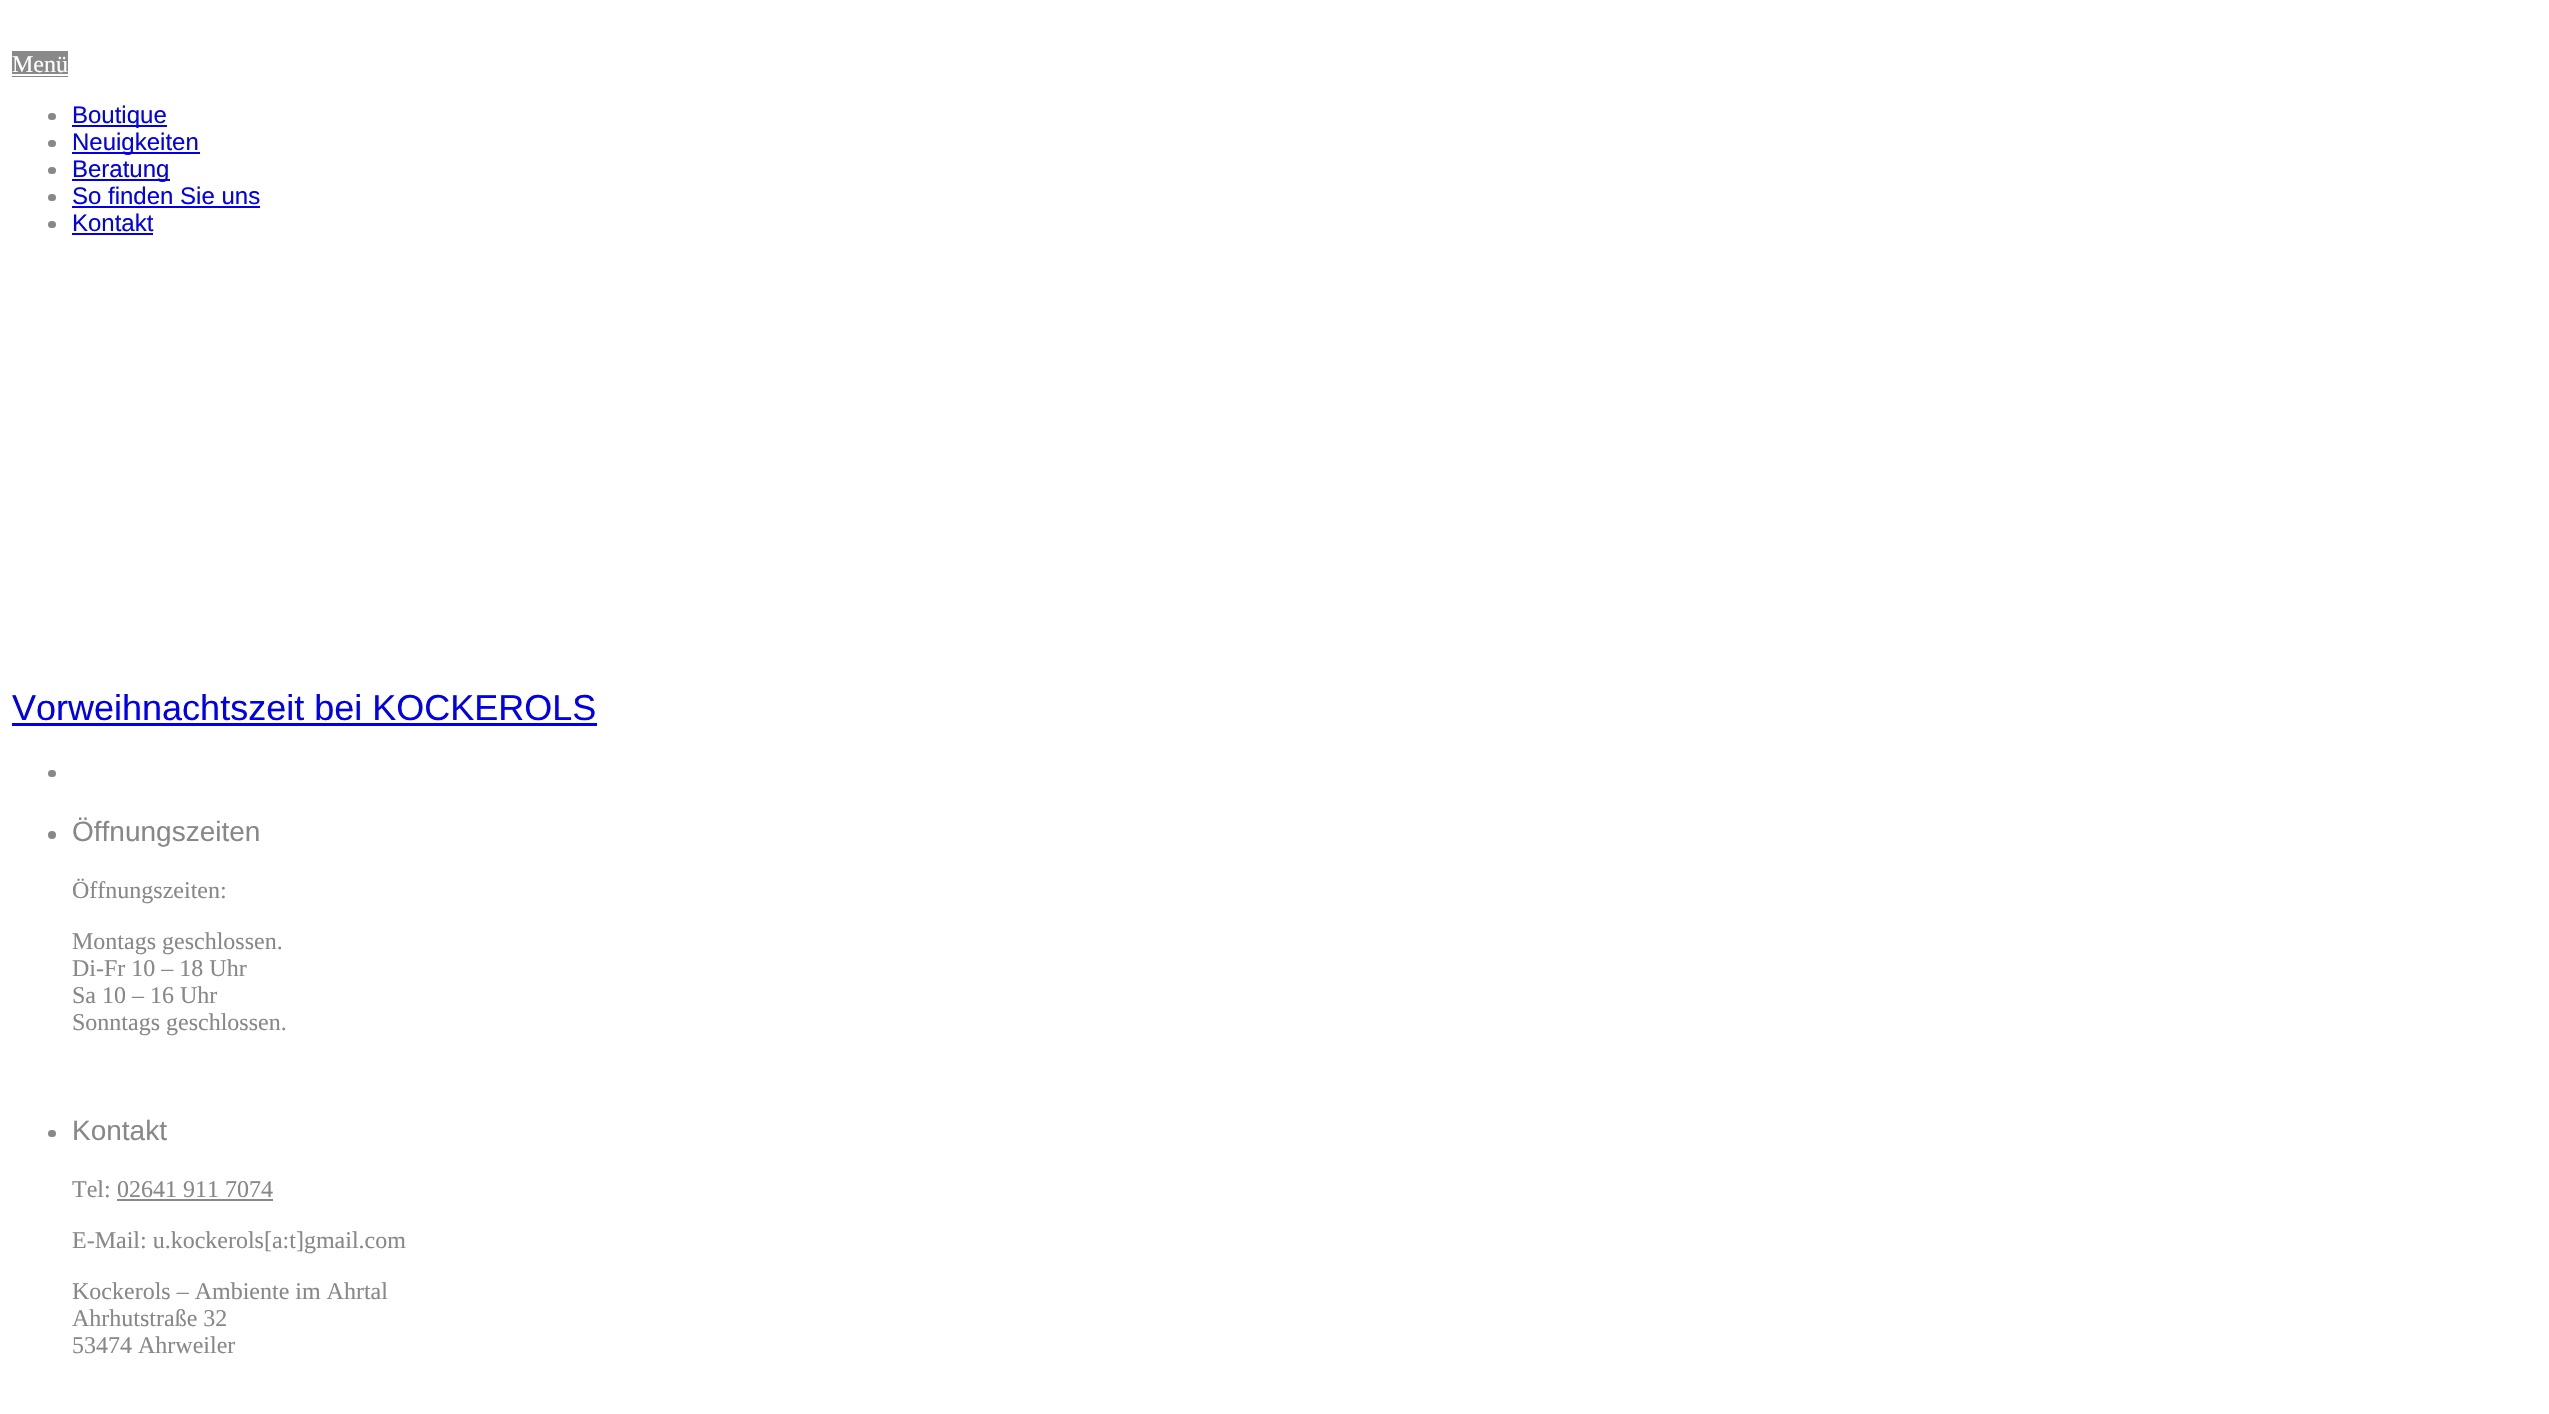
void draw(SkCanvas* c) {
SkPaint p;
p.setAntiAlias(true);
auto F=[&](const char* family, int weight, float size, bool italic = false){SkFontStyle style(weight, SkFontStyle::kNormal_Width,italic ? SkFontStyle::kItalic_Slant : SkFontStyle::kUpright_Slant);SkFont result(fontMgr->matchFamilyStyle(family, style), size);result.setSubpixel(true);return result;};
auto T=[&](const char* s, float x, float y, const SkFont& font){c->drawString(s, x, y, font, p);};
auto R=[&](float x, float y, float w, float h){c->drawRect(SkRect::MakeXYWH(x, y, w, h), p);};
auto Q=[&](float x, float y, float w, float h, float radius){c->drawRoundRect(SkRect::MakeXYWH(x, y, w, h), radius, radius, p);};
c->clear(0xffffffff);
p.setColor(0xff898989);
R(12,51,56,26);
auto f1 = F("Liberation Serif",400,24);
p.setColor(0xffffffff);
T("Menü",12,72,f1);
R(12,74,56,2);
p.setColor(0xff888888);
Q(48,113,8,7,3.5);
p.setColor(0xff0000ee);
R(72,125,95,2);
auto f2 = F("Liberation Sans",400,24);
T("Boutique",72,123,f2);
p.setColor(0xff888888);
Q(48,140,8,7,3.5);
p.setColor(0xff0000ee);
R(72,152,128,2);
T("Neuigkeiten",72,150,f2);
p.setColor(0xff888888);
Q(48,167,8,7,3.5);
p.setColor(0xff0000ee);
R(72,179,98,2);
T("Beratung",72,177,f2);
p.setColor(0xff888888);
Q(48,194,8,7,3.5);
p.setColor(0xff0000ee);
T("So finden Sie uns",72,204,f2);
R(72,206,188,2);
p.setColor(0xff888888);
Q(48,221,8,7,3.5);
p.setColor(0xff0000ee);
T("Kontakt",72,231,f2);
R(72,233,81,2);
auto f3 = F("Liberation Sans",400,36);
T("Vorweihnachtszeit bei KOCKEROLS",12,720,f3);
R(12,723,585,3);
p.setColor(0xff888888);
Q(48,770,8,7,3.5);
c->drawCircle(52,835,4,p);
auto f4 = F("Liberation Sans",400,28);
T("Öffnungszeiten",72,841,f4);
T("Öffnungszeiten:",72,898,f1);
T("Montags geschlossen.",72,949,f1);
T("Di-Fr 10 – 18 Uhr",72,976,f1);
T("Sa 10 – 16 Uhr",72,1003,f1);
T("Sonntags geschlossen.",72,1030,f1);
Q(48,1130,8,7,3.5);
T("Kontakt",72,1140,f4);
T("Tel:",72,1197,f1);
T("02641 911 7074",117,1197,f1);
p.setColor(0xff898989);
R(117,1199,156,2);
p.setColor(0xff888888);
T("E-Mail: u.kockerols[a:t]gmail.com",72,1248,f1);
T("Kockerols – Ambiente im Ahrtal",72,1299,f1);
T("Ahrhutstraße 32",72,1326,f1);
T("53474 Ahrweiler",72,1353,f1);
}
